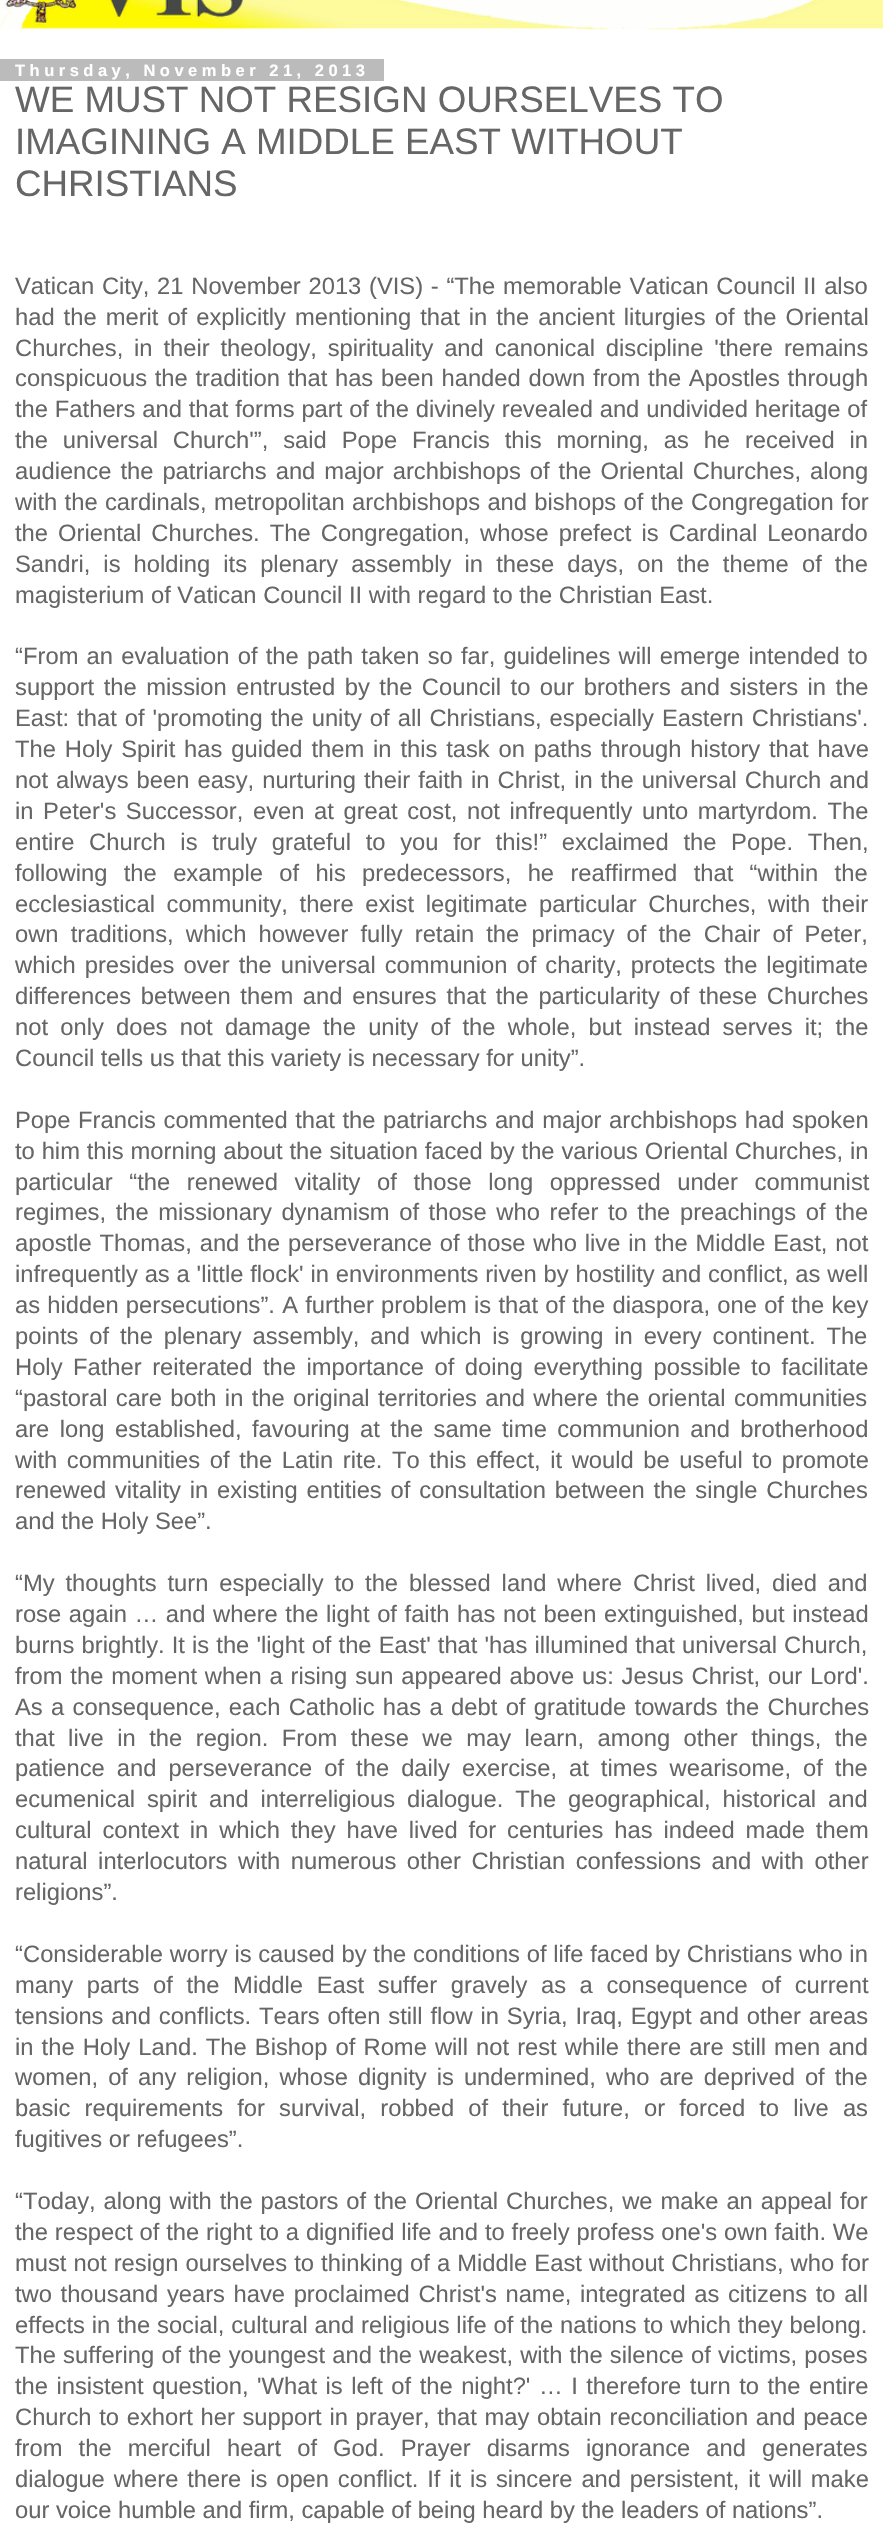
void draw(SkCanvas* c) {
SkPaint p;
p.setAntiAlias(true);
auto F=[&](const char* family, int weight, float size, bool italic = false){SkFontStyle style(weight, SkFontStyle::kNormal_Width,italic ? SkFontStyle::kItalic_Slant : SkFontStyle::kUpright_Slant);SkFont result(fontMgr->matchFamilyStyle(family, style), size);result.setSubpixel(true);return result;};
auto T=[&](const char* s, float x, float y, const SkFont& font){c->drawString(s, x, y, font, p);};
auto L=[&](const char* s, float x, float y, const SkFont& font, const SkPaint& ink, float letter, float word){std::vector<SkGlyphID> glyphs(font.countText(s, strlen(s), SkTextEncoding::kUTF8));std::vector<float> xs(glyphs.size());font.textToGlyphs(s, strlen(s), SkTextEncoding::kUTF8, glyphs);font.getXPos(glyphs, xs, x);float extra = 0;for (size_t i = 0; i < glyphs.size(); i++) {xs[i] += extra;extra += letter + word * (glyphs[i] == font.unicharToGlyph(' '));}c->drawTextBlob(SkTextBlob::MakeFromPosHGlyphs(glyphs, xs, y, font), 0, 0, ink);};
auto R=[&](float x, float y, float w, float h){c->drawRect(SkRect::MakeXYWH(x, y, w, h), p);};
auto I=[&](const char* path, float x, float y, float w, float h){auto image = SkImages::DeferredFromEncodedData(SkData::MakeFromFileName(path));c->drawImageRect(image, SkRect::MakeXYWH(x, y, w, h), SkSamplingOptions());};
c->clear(0xffffffff);
I("1.png",0,0,883,30);
p.setColor(0xffbbbbbb);
R(0,59,384,22);
auto f1 = F("Liberation Sans",700,16.5);
p.setColor(0xffffffff);
L("Thursday, November 21, 2013",15,76,f1,p,4.5,0);
auto f2 = F("Liberation Sans",400,36.75);
p.setColor(0xff666666);
T("WE MUST NOT RESIGN OURSELVES TO",15,112,f2);
T("IMAGINING A MIDDLE EAST WITHOUT",15,154,f2);
T("CHRISTIANS",15,196,f2);
auto f3 = F("Liberation Sans",400,23.75);
L("Vatican City, 21 November 2013 (VIS) - “The memorable Vatican Council II also",15,294,f3,p,0,1.1);
L("had the merit of explicitly mentioning that in the ancient liturgies of the Oriental",15,325,f3,p,0,2.4);
L("Churches, in their theology, spirituality and canonical discipline 'there remains",15,356,f3,p,0,4.25);
L("conspicuous the tradition that has been handed down from the Apostles through",15,386,f3,p,0,1.1);
L("the Fathers and that forms part of the divinely revealed and undivided heritage of",15,417,f3,p,0,.25);
L("the universal Church'”, said Pope Francis this morning, as he received in",15,448,f3,p,0,8.25);
L("audience the patriarchs and major archbishops of the Oriental Churches, along",15,479,f3,p,0,2.4);
L("with the cardinals, metropolitan archbishops and bishops of the Congregation for",15,510,f3,p,0,.75);
L("the Oriental Churches. The Congregation, whose prefect is Cardinal Leonardo",15,541,f3,p,0,3.5);
L("Sandri, is holding its plenary assembly in these days, on the theme of the",15,572,f3,p,0,6.5);
T("magisterium of Vatican Council II with regard to the Christian East.",15,603,f3);
T("“",15,664,f3);
L("From an evaluation of the path taken so far, guidelines will emerge intended to",23,664,f3,p,0,1.6);
L("support the mission entrusted by the Council to our brothers and sisters in the",15,695,f3,p,0,2.9);
L("East: that of 'promoting the unity of all Christians, especially Eastern Christians'.",15,726,f3,p,0,1.4);
L("The Holy Spirit has guided them in this task on paths through history that have",15,757,f3,p,0,2.25);
L("not always been easy, nurturing their faith in Christ, in the universal Church and",15,788,f3,p,0,1.4);
L("in Peter's Successor, even at great cost, not infrequently unto martyrdom. The",15,819,f3,p,0,3);
L("entire Church is truly grateful to you for this!” exclaimed the Pope. Then,",15,850,f3,p,0,8.1);
L("following the example of his predecessors, he reaffirmed that “within the",15,881,f3,p,0,9.75);
L("ecclesiastical community, there exist legitimate particular Churches, with their",15,912,f3,p,0,5);
L("own traditions, which however fully retain the primacy of the Chair of Peter,",15,942,f3,p,0,5.5);
L("which presides over the universal communion of charity, protects the legitimate",15,973,f3,p,0,2.4);
L("differences between them and ensures that the particularity of these Churches",15,1004,f3,p,0,3.1);
L("not only does not damage the unity of the whole, but instead serves it; the",15,1035,f3,p,0,5.6);
T("Council tells us that this variety is necessary for unity”.",15,1066,f3);
L("Pope Francis commented that the patriarchs and major archbishops had spoken",15,1128,f3,p,0,1);
L("to him this morning about the situation faced by the various Oriental Churches, in",15,1159,f3,p,0,.25);
L("particular “the renewed vitality of those long oppressed under communist",15,1190,f3,p,0,10);
L("regimes, the missionary dynamism of those who refer to the preachings of the",15,1220,f3,p,0,3);
L("apostle Thomas, and the perseverance of those who live in the Middle East, not",15,1251,f3,p,0,1.25);
L("infrequently as a 'little flock' in environments riven by hostility and conflict, as well",15,1282,f3,p,0,.25);
L("as hidden persecutions”. A further problem is that of the diaspora, one of the key",15,1313,f3,p,0,.6);
L("points of the plenary assembly, and which is growing in every continent. The",15,1344,f3,p,0,4.25);
L("Holy Father reiterated the importance of doing everything possible to facilitate",15,1375,f3,p,0,3.9);
L("“pastoral care both in the original territories and where the oriental communities",15,1406,f3,p,0,1.75);
L("are long established, favouring at the same time communion and brotherhood",15,1437,f3,p,0,3.75);
L("with communities of the Latin rite. To this effect, it would be useful to promote",15,1468,f3,p,0,3);
L("renewed vitality in existing entities of consultation between the single Churches",15,1498,f3,p,0,2.25);
T("and the Holy See”.",15,1529,f3);
T("“",15,1591,f3);
L("My thoughts turn especially to the blessed land where Christ lived, died and",23,1591,f3,p,0,4.25);
L("rose again … and where the light of faith has not been extinguished, but instead",15,1622,f3,p,0,1);
L("burns brightly. It is the 'light of the East' that 'has illumined that universal Church,",15,1653,f3,p,0,.5);
L("from the moment when a rising sun appeared above us: Jesus Christ, our Lord'.",15,1684,f3,p,0,1.25);
L("As a consequence, each Catholic has a debt of gratitude towards the Churches",15,1715,f3,p,0,1.75);
L("that live in the region. From these we may learn, among other things, the",15,1746,f3,p,0,6.9);
L("patience and perseverance of the daily exercise, at times wearisome, of the",15,1776,f3,p,0,5.4);
L("ecumenical spirit and interreligious dialogue. The geographical, historical and",15,1807,f3,p,0,5.25);
L("cultural context in which they have lived for centuries has indeed made them",15,1838,f3,p,0,4.25);
L("natural interlocutors with numerous other Christian confessions and with other",15,1869,f3,p,0,3.9);
T("religions”.",15,1900,f3);
T("“",15,1962,f3);
L("Considerable worry is caused by the conditions of life faced by Christians who in",23,1962,f3,p,0,.1);
L("many parts of the Middle East suffer gravely as a consequence of current",15,1993,f3,p,0,7);
L("tensions and conflicts. Tears often still flow in Syria, Iraq, Egypt and other areas",15,2024,f3,p,0,1.25);
L("in the Holy Land. The Bishop of Rome will not rest while there are still men and",15,2055,f3,p,0,1.5);
L("women, of any religion, whose dignity is undermined, who are deprived of the",15,2085,f3,p,0,3.4);
L("basic requirements for survival, robbed of their future, or forced to live as",15,2116,f3,p,0,7.5);
T("fugitives or refugees”.",15,2147,f3);
T("“",15,2209,f3);
L("Today, along with the pastors of the Oriental Churches, we make an appeal for",23,2209,f3,p,0,1.3);
L("the respect of the right to a dignified life and to freely profess one's own faith. We",15,2240,f3,p,0,.25);
L("must not resign ourselves to thinking of a Middle East without Christians, who for",15,2271,f3,p,0,.5);
L("two thousand years have proclaimed Christ's name, integrated as citizens to all",15,2302,f3,p,0,2);
L("effects in the social, cultural and religious life of the nations to which they belong.",15,2333,f3,p,0,.25);
L("The suffering of the youngest and the weakest, with the silence of victims, poses",15,2363,f3,p,0,.6);
L("the insistent question, 'What is left of the night?' … I therefore turn to the entire",15,2394,f3,p,0,1.9);
L("Church to exhort her support in prayer, that may obtain reconciliation and peace",15,2425,f3,p,0,1.1);
L("from the merciful heart of God. Prayer disarms ignorance and generates",15,2456,f3,p,0,9.5);
L("dialogue where there is open conflict. If it is sincere and persistent, it will make",15,2487,f3,p,0,2.25);
T("our voice humble and firm, capable of being heard by the leaders of nations”.",15,2518,f3);
}
